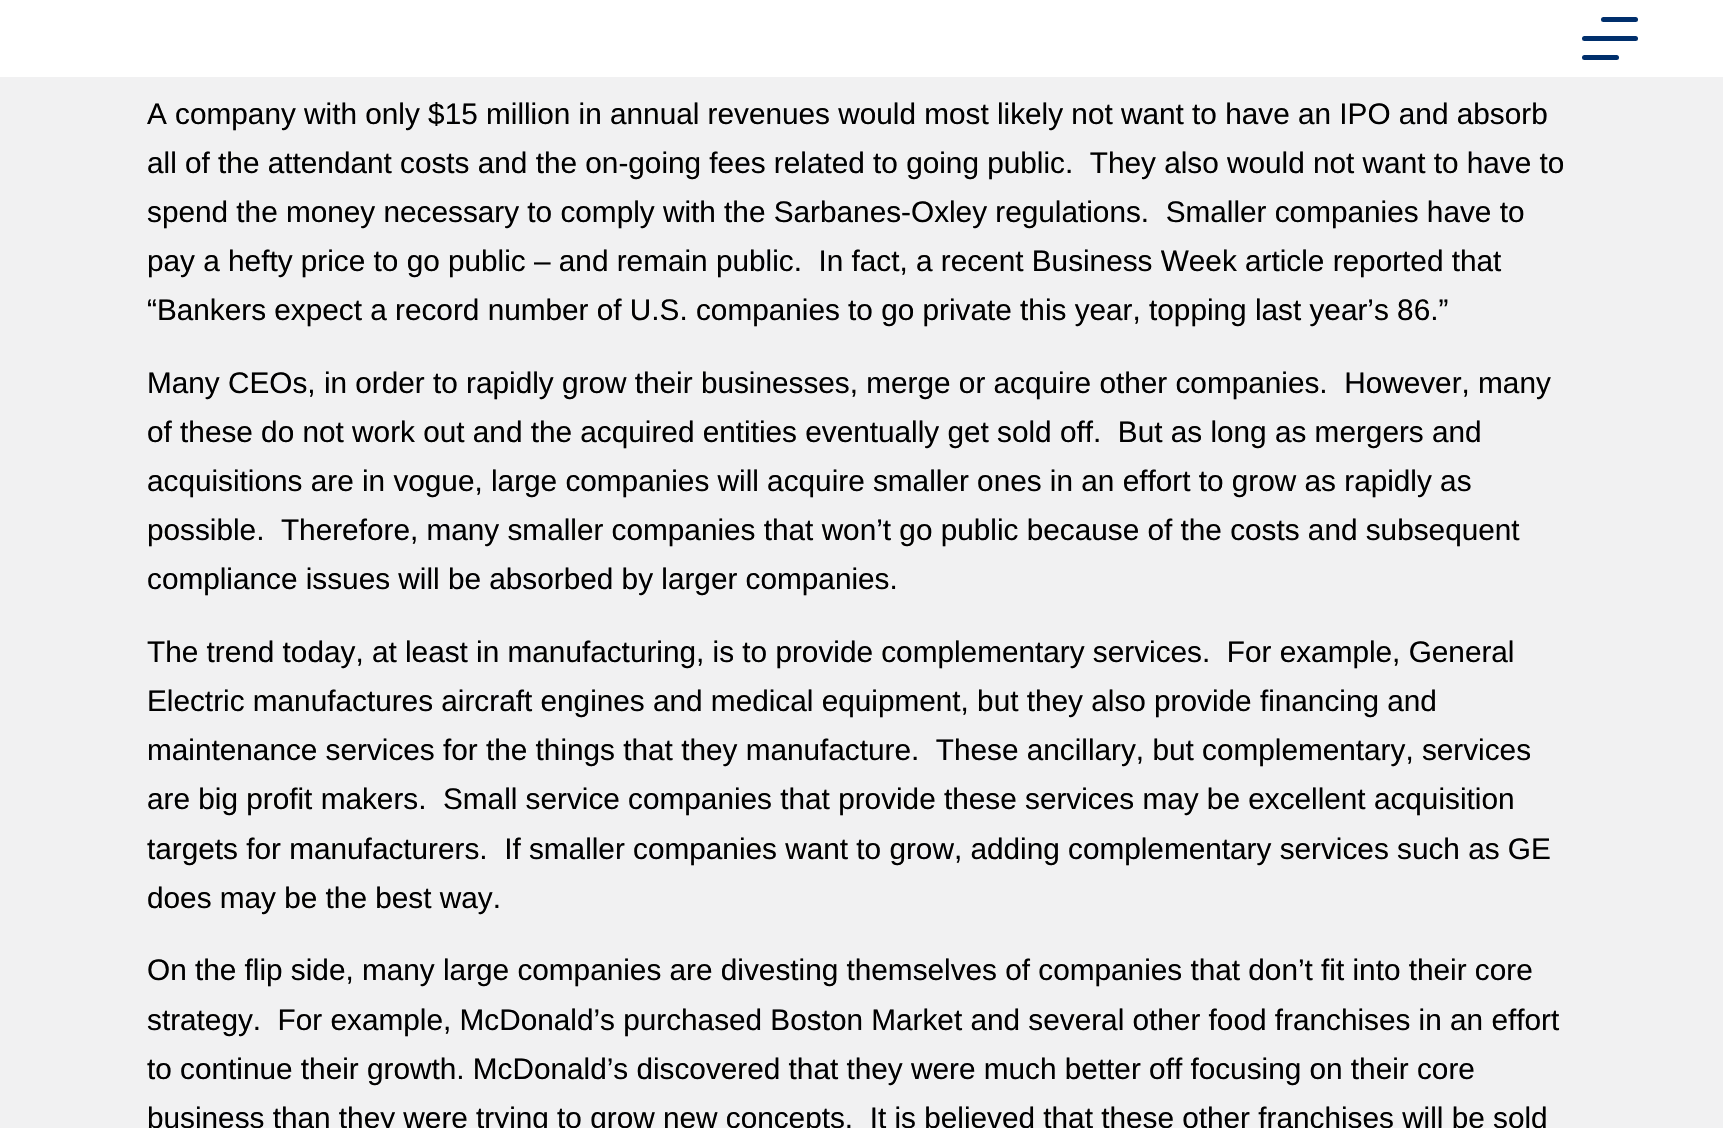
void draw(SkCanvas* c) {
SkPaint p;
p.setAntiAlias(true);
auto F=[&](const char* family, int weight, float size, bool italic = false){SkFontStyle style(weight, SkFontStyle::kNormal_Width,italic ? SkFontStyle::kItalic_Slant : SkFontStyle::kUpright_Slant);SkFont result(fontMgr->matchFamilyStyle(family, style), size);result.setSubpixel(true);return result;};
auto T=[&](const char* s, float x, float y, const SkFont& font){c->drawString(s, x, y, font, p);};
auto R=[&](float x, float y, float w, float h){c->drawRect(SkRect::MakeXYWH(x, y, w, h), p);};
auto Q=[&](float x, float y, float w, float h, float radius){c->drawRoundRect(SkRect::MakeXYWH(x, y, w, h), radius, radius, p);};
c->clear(0xfff1f1f2);
p.setColor(0xffffffff);
R(0,0,1723,77);
p.setColor(0xff002f6c);
Q(1601,17,37,5,2.5);
Q(1582,36,56,5,2.5);
Q(1582,55,37,5,2.5);
auto f1 = F("Liberation Sans",400,29.75);
p.setColor(0xff000000);
T("A company with only $15 million in annual revenues would most likely not want to have an IPO and absorb",147,124,f1);
T("all of the attendant costs and the on-going fees related to going public.  They also would not want to have to",147,173,f1);
T("spend the money necessary to comply with the Sarbanes-Oxley regulations.  Smaller companies have to",147,222,f1);
T("pay a hefty price to go public – and remain public.  In fact, a recent Business Week article reported that",147,271,f1);
T("“Bankers expect a record number of U.S. companies to go private this year, topping last year’s 86.”",147,320,f1);
T("Many CEOs, in order to rapidly grow their businesses, merge or acquire other companies.  However, many",147,393,f1);
T("of these do not work out and the acquired entities eventually get sold off.  But as long as mergers and",147,442,f1);
T("acquisitions are in vogue, large companies will acquire smaller ones in an effort to grow as rapidly as",147,491,f1);
T("possible.  Therefore, many smaller companies that won’t go public because of the costs and subsequent",147,540,f1);
T("compliance issues will be absorbed by larger companies.",147,589,f1);
T("The trend today, at least in manufacturing, is to provide complementary services.  For example, General",147,662,f1);
T("Electric manufactures aircraft engines and medical equipment, but they also provide financing and",147,711,f1);
T("maintenance services for the things that they manufacture.  These ancillary, but complementary, services",147,760,f1);
T("are big profit makers.  Small service companies that provide these services may be excellent acquisition",147,809,f1);
T("targets for manufacturers.  If smaller companies want to grow, adding complementary services such as GE",147,859,f1);
T("does may be the best way.",147,908,f1);
T("On the flip side, many large companies are divesting themselves of companies that don’t fit into their core",147,980,f1);
T("strategy.  For example, McDonald’s purchased Boston Market and several other food franchises in an effort",147,1030,f1);
T("to continue their growth. McDonald’s discovered that they were much better off focusing on their core",147,1079,f1);
T("business than they were trying to grow new concepts.  It is believed that these other franchises will be sold",147,1128,f1);
}
